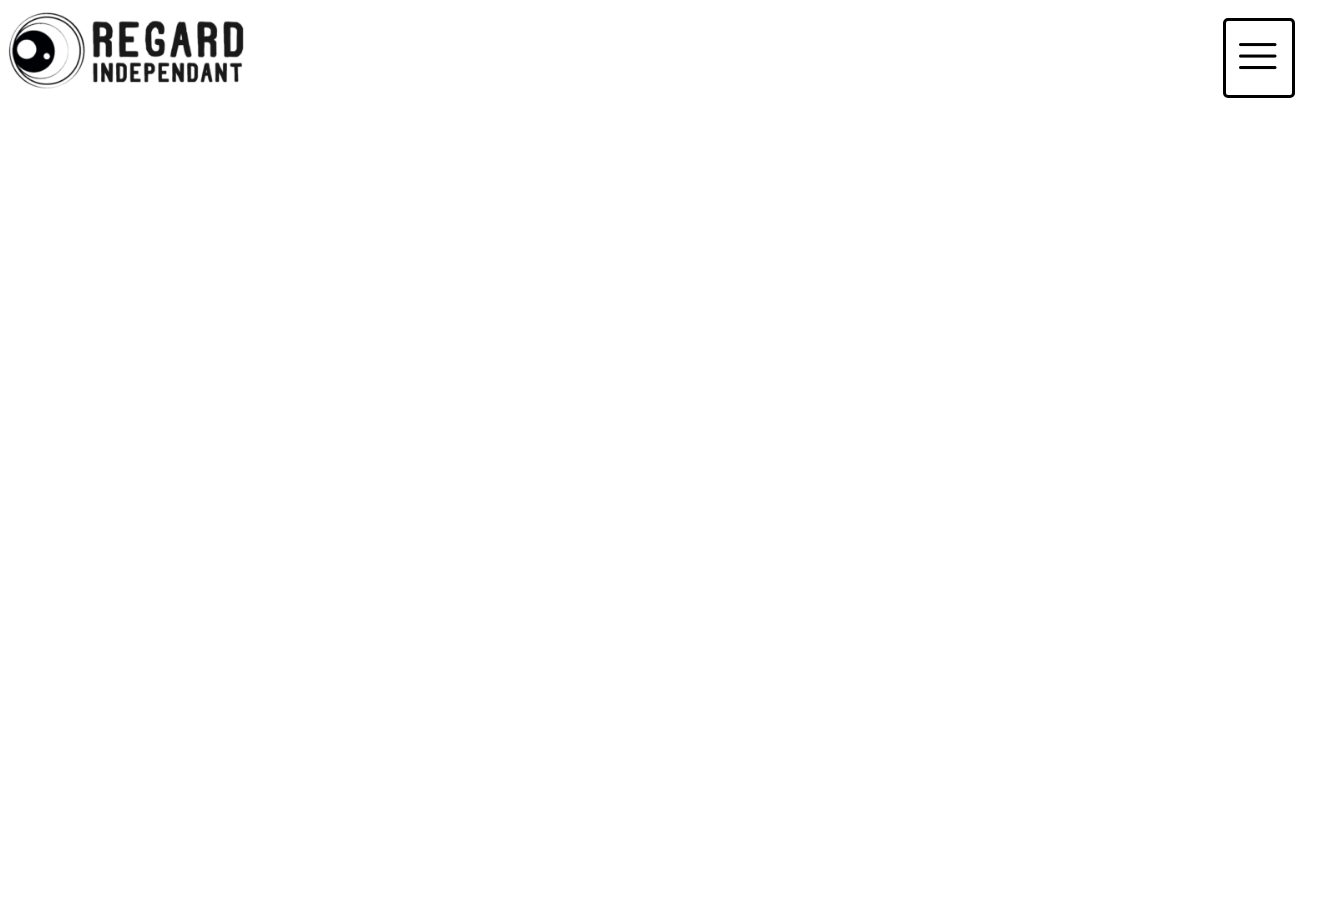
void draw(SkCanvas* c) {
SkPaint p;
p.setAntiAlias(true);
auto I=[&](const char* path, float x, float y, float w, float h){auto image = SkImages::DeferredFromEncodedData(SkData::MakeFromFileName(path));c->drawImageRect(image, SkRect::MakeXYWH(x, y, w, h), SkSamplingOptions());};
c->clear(0xffffffff);
I("1.png",8,12,236,77);
p.setStroke(true);
p.setStrokeWidth(3);
p.setColor(0xff000000);
c->drawRoundRect(SkRect::MakeXYWH(1224.5,19.5,69,77),3.5,3.5,p);
I("2.png",1239,43,38,27);
}
